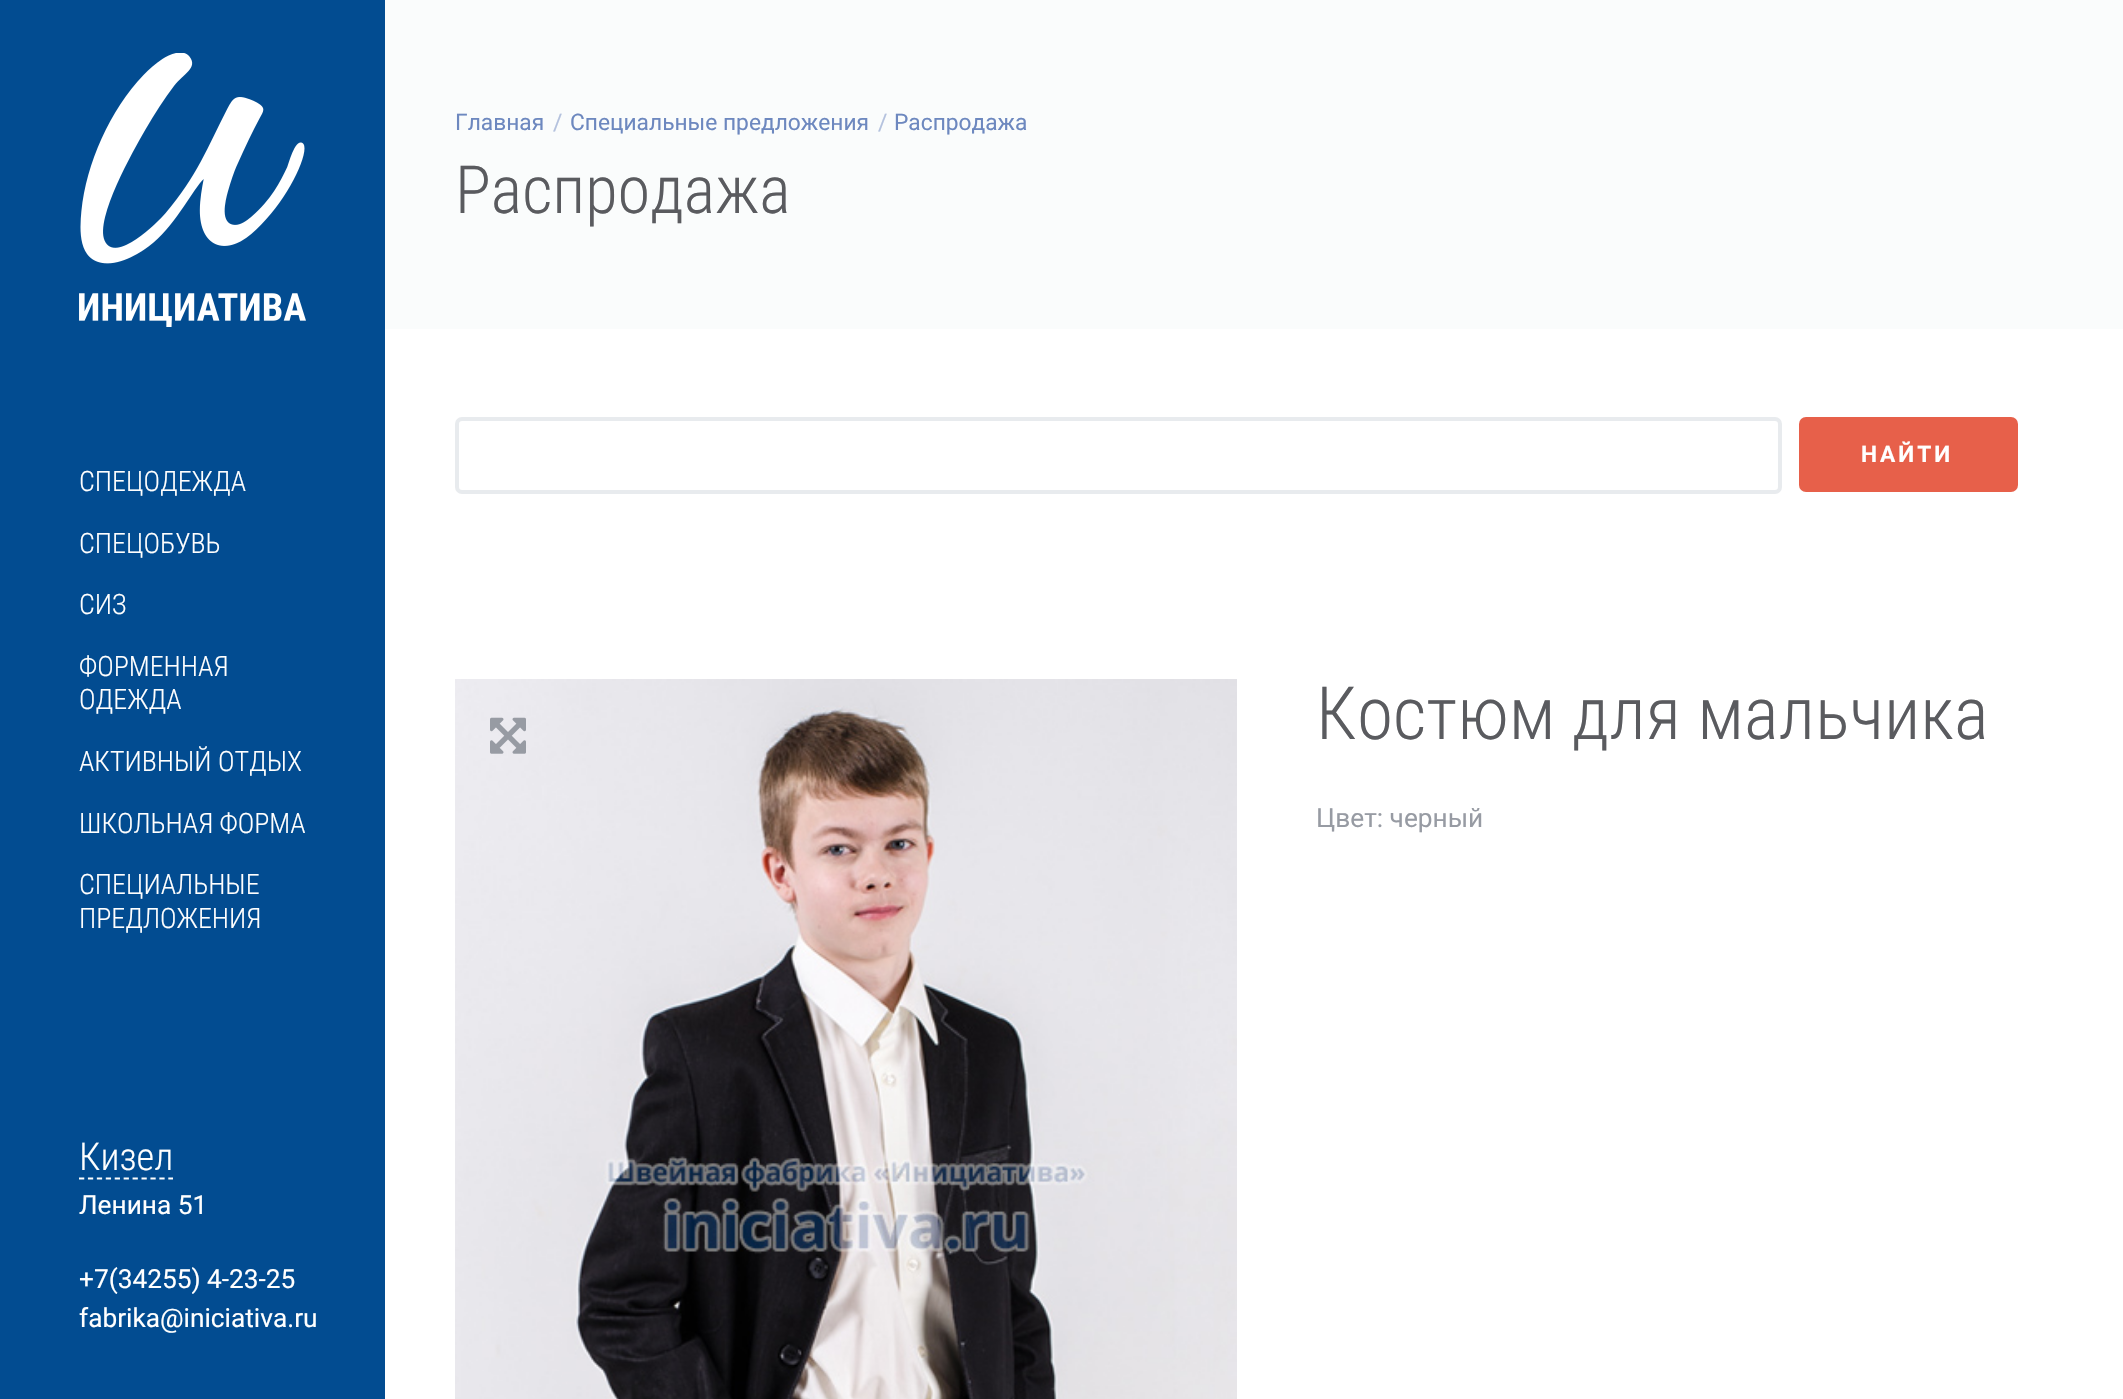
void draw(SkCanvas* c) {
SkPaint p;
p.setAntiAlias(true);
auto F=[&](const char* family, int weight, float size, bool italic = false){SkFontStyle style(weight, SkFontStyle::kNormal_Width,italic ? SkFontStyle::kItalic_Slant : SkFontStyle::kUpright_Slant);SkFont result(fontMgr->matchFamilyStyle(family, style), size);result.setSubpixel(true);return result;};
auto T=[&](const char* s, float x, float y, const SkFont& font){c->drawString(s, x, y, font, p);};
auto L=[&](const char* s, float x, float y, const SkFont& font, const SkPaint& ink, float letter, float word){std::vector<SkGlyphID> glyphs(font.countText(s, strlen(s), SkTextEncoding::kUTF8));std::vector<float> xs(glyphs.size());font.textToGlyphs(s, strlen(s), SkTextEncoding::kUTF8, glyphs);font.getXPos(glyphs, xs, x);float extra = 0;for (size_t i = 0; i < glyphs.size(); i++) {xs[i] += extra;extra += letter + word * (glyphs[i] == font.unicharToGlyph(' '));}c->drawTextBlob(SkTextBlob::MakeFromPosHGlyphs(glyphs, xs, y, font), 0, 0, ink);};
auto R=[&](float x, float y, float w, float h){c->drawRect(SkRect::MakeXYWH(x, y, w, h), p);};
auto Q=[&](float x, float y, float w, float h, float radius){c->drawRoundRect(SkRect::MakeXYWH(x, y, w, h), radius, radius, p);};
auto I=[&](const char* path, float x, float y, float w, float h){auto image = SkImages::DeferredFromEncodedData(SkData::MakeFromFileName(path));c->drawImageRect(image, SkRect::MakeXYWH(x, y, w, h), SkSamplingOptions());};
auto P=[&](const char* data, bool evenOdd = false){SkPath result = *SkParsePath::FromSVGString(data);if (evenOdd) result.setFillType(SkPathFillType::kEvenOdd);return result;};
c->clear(0xffffffff);
p.setColor(0xff024c91);
R(0,0,385,1399);
I("1.png",79,53,227,274);
auto f1 = F("Roboto Condensed",300,28);
p.setColor(0xffffffff);
T("СПЕЦОДЕЖДА",79,491,f1);
T("СПЕЦОБУВЬ",79,553,f1);
T("СИЗ",79,614,f1);
T("ФОРМЕННАЯ",79,676,f1);
T("ОДЕЖДА",79,709,f1);
T("АКТИВНЫЙ ОТДЫХ",79,771,f1);
T("ШКОЛЬНАЯ ФОРМА",79,833,f1);
T("СПЕЦИАЛЬНЫЕ",79,894,f1);
T("ПРЕДЛОЖЕНИЯ",79,928,f1);
p.setStroke(true);
p.setStrokeWidth(1.8);
p.setPathEffect(SkDashPathEffect::Make({{5.25f,3.68f}}, 0));
c->drawPath(P("M79 1178.5h94"),p);
p.setPathEffect(nullptr);
auto f2 = F("Roboto Condensed",300,38.5);
p.setStroke(false);
T("Кизел",79,1170,f2);
auto f3 = F("Roboto",400,26.25);
T("Ленина 51",79,1214,f3);
T("+7(34255) 4-23-25",79,1288,f3);
T("fabrika@iniciativa.ru",79,1327,f3);
p.setColor(0xfffafcfc);
R(385,0,1738,329);
auto f4 = F("Roboto",400,22.75);
p.setColor(0xff6d88bf);
T("Главная",455,130,f4);
p.setColor(0xffb4c2de);
T("/",553,130,f4);
p.setColor(0xff6d88bf);
T("Специальные предложения",570,130,f4);
p.setColor(0xffb4c2de);
T("/",878,130,f4);
p.setColor(0xff6d88bf);
T("Распродажа",894,130,f4);
auto f5 = F("Roboto Condensed",300,66.5);
p.setColor(0xff5a5b5f);
T("Распродажа",455,213,f5);
p.setStroke(true);
p.setStrokeWidth(4);
p.setColor(0xffe8ebee);
c->drawRoundRect(SkRect::MakeXYWH(457,419,1323,73),5,5,p);
p.setStroke(false);
p.setColor(0xffe7604a);
Q(1799,417,219,75,7);
auto f6 = F("Roboto",700,22.75);
p.setColor(0xffffffff);
L("НАЙТИ",1861,462,f6,p,3,0);
I("2.png",455,679,782,720);
I("3.png",490,717,36,37);
auto f7 = F("Roboto Condensed",300,73.5);
p.setColor(0xff5a5b5f);
T("Костюм для мальчика",1316,739,f7);
p.setColor(0xff979ba3);
T("Цвет: черный",1316,827,f3);
}
